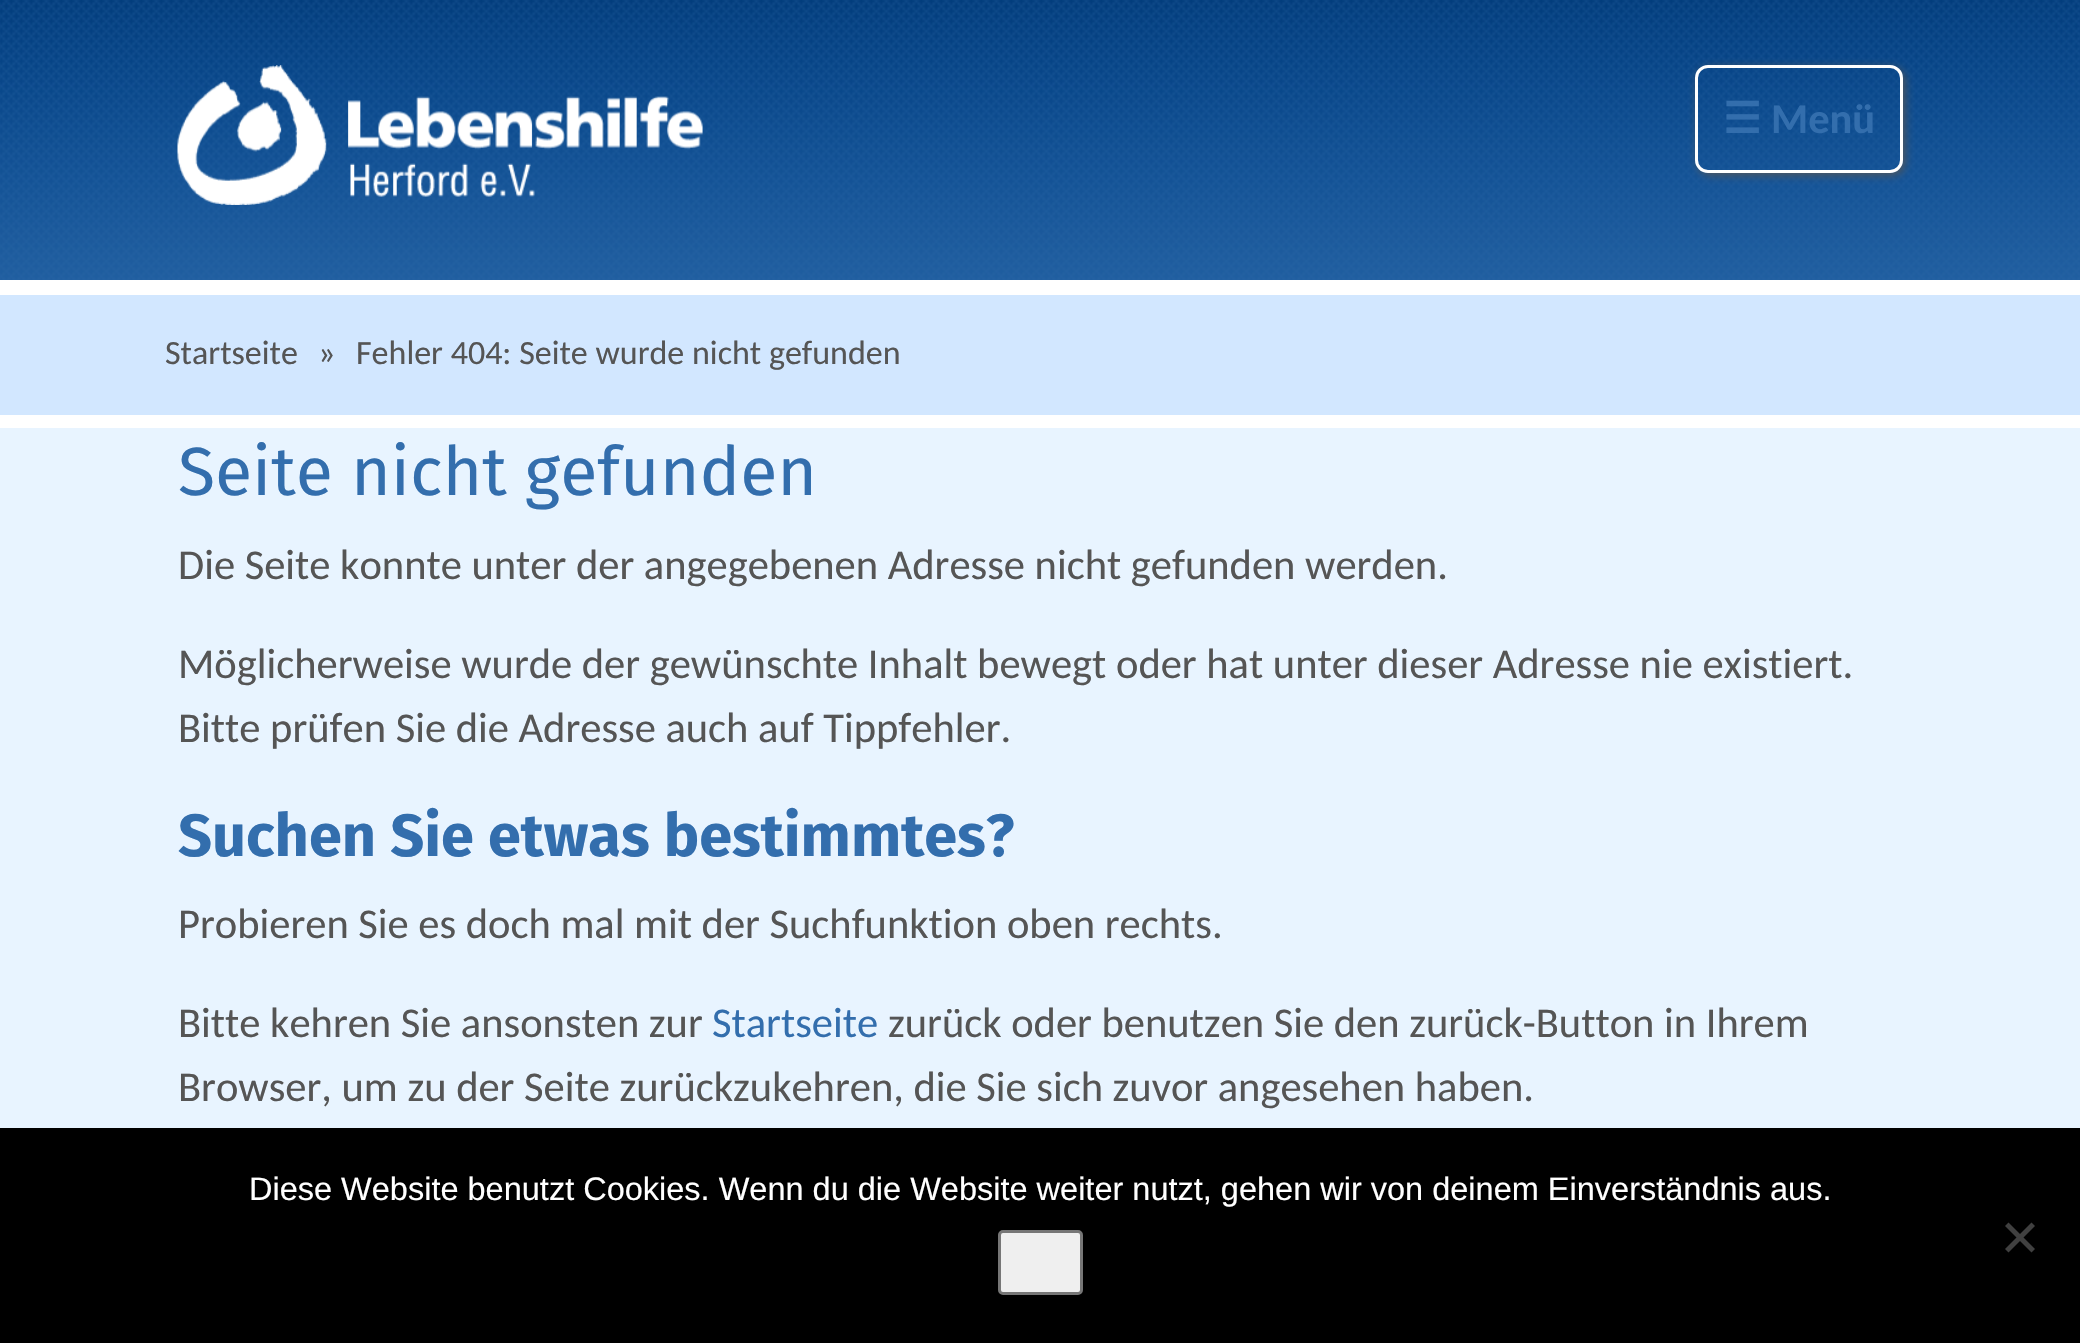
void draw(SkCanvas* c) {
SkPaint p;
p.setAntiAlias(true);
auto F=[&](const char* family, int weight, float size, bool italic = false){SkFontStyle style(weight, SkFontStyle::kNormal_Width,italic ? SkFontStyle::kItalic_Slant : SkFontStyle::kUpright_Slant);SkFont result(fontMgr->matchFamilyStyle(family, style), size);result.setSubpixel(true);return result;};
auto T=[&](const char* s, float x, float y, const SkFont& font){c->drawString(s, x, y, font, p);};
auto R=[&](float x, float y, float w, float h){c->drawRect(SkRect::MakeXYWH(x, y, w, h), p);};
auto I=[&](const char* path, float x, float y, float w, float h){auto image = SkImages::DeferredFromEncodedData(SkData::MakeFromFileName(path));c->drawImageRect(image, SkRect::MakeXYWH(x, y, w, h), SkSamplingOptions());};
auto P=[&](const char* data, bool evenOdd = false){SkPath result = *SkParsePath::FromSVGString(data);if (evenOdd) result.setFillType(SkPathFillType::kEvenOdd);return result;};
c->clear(0xffe8f4ff);
I("1.png",0,0,2080,280);
p.setColor(0xffffffff);
R(0,280,2080,15);
I("2.png",177,65,526,140);
c->save();
c->clipPath(P("M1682 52h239v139h-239zm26 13h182c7 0 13 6 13 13v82c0 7-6 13-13 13h-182c-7 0-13-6-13-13v-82c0-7 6-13 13-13z",true),true);
p.setColor(0xff555555);
p.setMaskFilter(SkMaskFilter::MakeBlur(kNormal_SkBlurStyle, 5));
c->drawRoundRect(SkRect::MakeXYWH(1698,68,207,107),13,13,p);
p.setMaskFilter(nullptr);
c->restore();
p.setStroke(true);
p.setStrokeWidth(3);
p.setColor(0xffffffff);
c->drawRoundRect(SkRect::MakeXYWH(1696.5,66.5,205,105),11.5,11.5,p);
auto f1 = F("DejaVu Sans",700,42.5);
p.setStroke(false);
p.setColor(0xff336ead);
T("☰",1723,133,f1);
auto f2 = F("Carlito",700,42.5);
T("Menü",1771,133,f2);
p.setColor(0xffd2e7ff);
R(0,295,2080,120);
p.setColor(0xffffffff);
R(0,415,2080,13);
auto f3 = F("Carlito",400,34);
p.setColor(0xff555555);
T("Startseite",165,364,f3);
T("»",318,364,f3);
T("Fehler 404: Seite wurde nicht gefunden",356,364,f3);
auto f4 = F("Fira Sans",400,68);
p.setColor(0xff336ead);
T("Seite nicht gefunden",178,495,f4);
auto f5 = F("Carlito",400,42.5);
p.setColor(0xff555555);
T("Die Seite konnte unter der angegebenen Adresse nicht gefunden werden.",178,579,f5);
T("Möglicherweise wurde der gewünschte Inhalt bewegt oder hat unter dieser Adresse nie existiert.",178,678,f5);
T("Bitte prüfen Sie die Adresse auch auf Tippfehler.",178,742,f5);
auto f6 = F("Fira Sans",700,59.5);
p.setColor(0xff336ead);
T("Suchen Sie etwas bestimmtes?",178,856,f6);
p.setColor(0xff555555);
T("Probieren Sie es doch mal mit der Suchfunktion oben rechts.",178,938,f5);
T("Bitte kehren Sie ansonsten zur",178,1037,f5);
p.setColor(0xff336ead);
T("Startseite",712,1037,f5);
p.setColor(0xff555555);
T("zurück oder benutzen Sie den zurück-Button in Ihrem",888,1037,f5);
T("Browser, um zu der Seite zurückzukehren, die Sie sich zuvor angesehen haben.",178,1101,f5);
p.setColor(0xff000000);
R(0,1128,2080,215);
auto f7 = F("Liberation Sans",400,32.5);
p.setColor(0xffffffff);
T("Diese Website benutzt Cookies. Wenn du die Website weiter nutzt, gehen wir von deinem Einverständnis aus.",249,1200,f7);
p.setColor(0xffefefef);
c->drawRoundRect(SkRect::MakeXYWH(999.5,1231.5,82,62),3.5,3.5,p);
p.setStroke(true);
p.setColor(0xff767676);
c->drawRoundRect(SkRect::MakeXYWH(999.5,1231.5,82,62),3.5,3.5,p);
p.setStroke(false);
p.setColor(0xff404040);
c->drawPath(P("M2031.5 1222.5l3.5 3.5l-26.5 26.5l-3.5-3.5z"),p);
c->drawPath(P("M2005 1226l3.5-3.5l26.5 26.5l-3.5 3.5z"),p);
}
